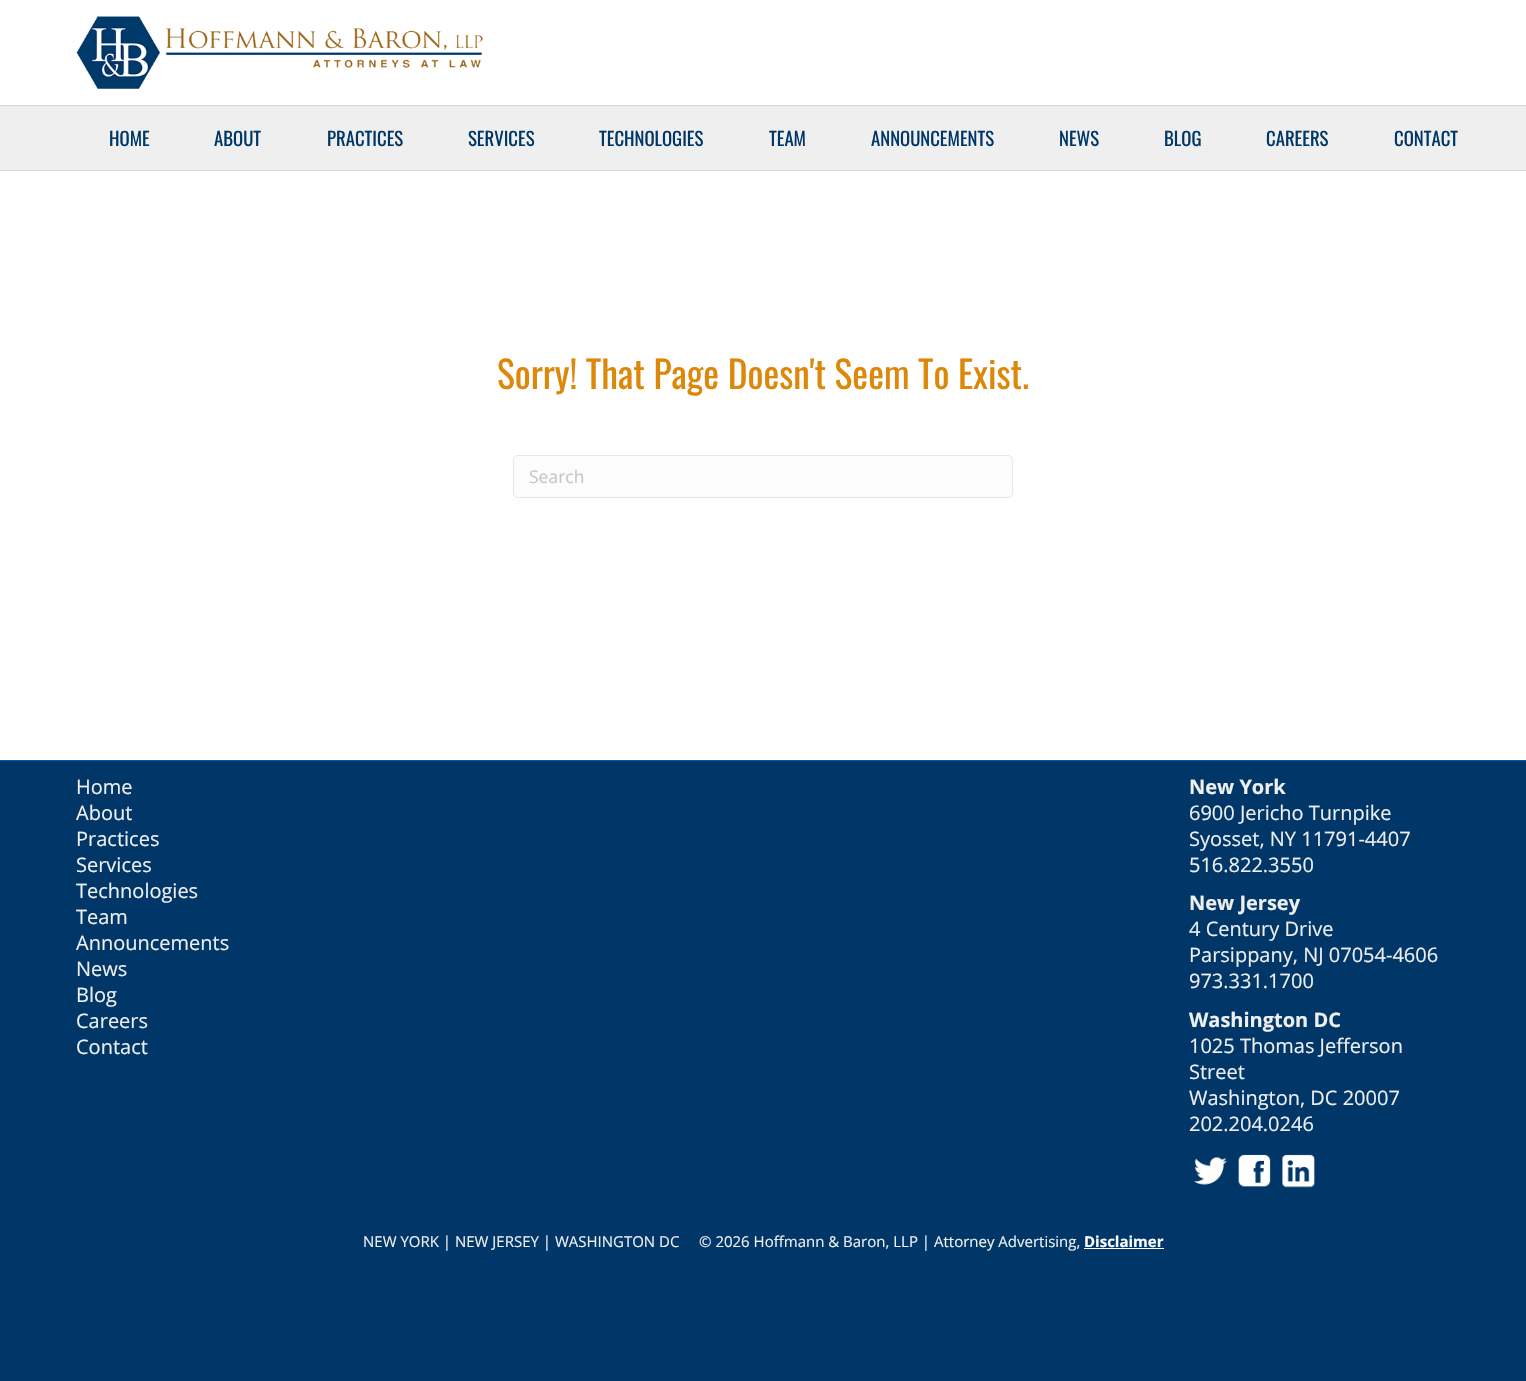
void draw(SkCanvas* c) {
SkPaint p;
p.setAntiAlias(true);
auto F=[&](const char* family, int weight, float size, bool italic = false){SkFontStyle style(weight, SkFontStyle::kNormal_Width,italic ? SkFontStyle::kItalic_Slant : SkFontStyle::kUpright_Slant);SkFont result(fontMgr->matchFamilyStyle(family, style), size);result.setSubpixel(true);return result;};
auto T=[&](const char* s, float x, float y, const SkFont& font){c->drawString(s, x, y, font, p);};
auto R=[&](float x, float y, float w, float h){c->drawRect(SkRect::MakeXYWH(x, y, w, h), p);};
auto I=[&](const char* path, float x, float y, float w, float h){auto image = SkImages::DeferredFromEncodedData(SkData::MakeFromFileName(path));c->drawImageRect(image, SkRect::MakeXYWH(x, y, w, h), SkSamplingOptions());};
c->clear(0xff003768);
p.setColor(0xffffffff);
R(0,0,1526,105);
I("1.png",76,16,407,73);
p.setColor(0xffefefef);
R(0,106,1526,64);
p.setColor(0xffd6d6d6);
R(0,105,1526,1);
R(0,170,1526,1);
auto f1 = F("Oswald",400,18.75);
p.setColor(0xff003768);
T("HOME",109,146,f1);
T("ABOUT",214,146,f1);
T("PRACTICES",327,146,f1);
T("SERVICES",468,146,f1);
T("TECHNOLOGIES",599,146,f1);
T("TEAM",769,146,f1);
T("ANNOUNCEMENTS",871,146,f1);
T("NEWS",1059,146,f1);
T("BLOG",1164,146,f1);
T("CAREERS",1266,146,f1);
T("CONTACT",1394,146,f1);
p.setColor(0xffffffff);
R(0,171,1526,589);
auto f2 = F("Oswald",400,37.5);
p.setColor(0xffdd8808);
T("Sorry! That Page Doesn't Seem To Exist.",497,389,f2);
p.setColor(0xfffcfcfc);
c->drawRoundRect(SkRect::MakeXYWH(513.5,455.5,499,42),4.5,4.5,p);
p.setStroke(true);
p.setStrokeWidth(1);
p.setColor(0xffe6e6e6);
c->drawRoundRect(SkRect::MakeXYWH(513.5,455.5,499,42),4.5,4.5,p);
auto f3 = F("Open Sans",400,17.5);
p.setStroke(false);
p.setColor(0xffc6c6c6);
T("Search",529,483,f3);
p.setColor(0xff005aaa);
R(0,760,1526,1);
auto f4 = F("Open Sans",400,20);
p.setColor(0xffefefef);
T("Home",76,794,f4);
T("About",76,820,f4);
T("Practices",76,846,f4);
T("Services",76,872,f4);
T("Technologies",76,898,f4);
T("Team",76,924,f4);
T("Announcements",76,950,f4);
T("News",76,976,f4);
T("Blog",76,1002,f4);
T("Careers",76,1028,f4);
T("Contact",76,1054,f4);
auto f5 = F("Open Sans",700,20);
T("New York",1189,794,f5);
T("6900 Jericho Turnpike",1189,820,f4);
T("Syosset, NY 11791-4407",1189,846,f4);
T("516.822.3550",1189,872,f4);
T("New Jersey",1189,910,f5);
T("4 Century Drive",1189,936,f4);
T("Parsippany, NJ 07054-4606",1189,962,f4);
T("973.331.1700",1189,988,f4);
T("Washington DC",1189,1027,f5);
T("1025 Thomas Jefferson",1189,1053,f4);
T("Street",1189,1079,f4);
T("Washington, DC 20007",1189,1105,f4);
T("202.204.0246",1189,1131,f4);
I("2.png",1194,1156,34,29);
I("3.png",1238,1154,33,33);
I("4.png",1282,1154,33,34);
auto f6 = F("Open Sans",400,15);
T("NEW YORK | NEW JERSEY | WASHINGTON DC",363,1247,f6);
T("© 2026 Hoffmann & Baron, LLP | Attorney Advertising,",699,1247,f6);
auto f7 = F("Open Sans",700,15);
p.setColor(0xffffffff);
T("Disclaimer",1084,1247,f7);
R(1084,1248,80,1);
}
